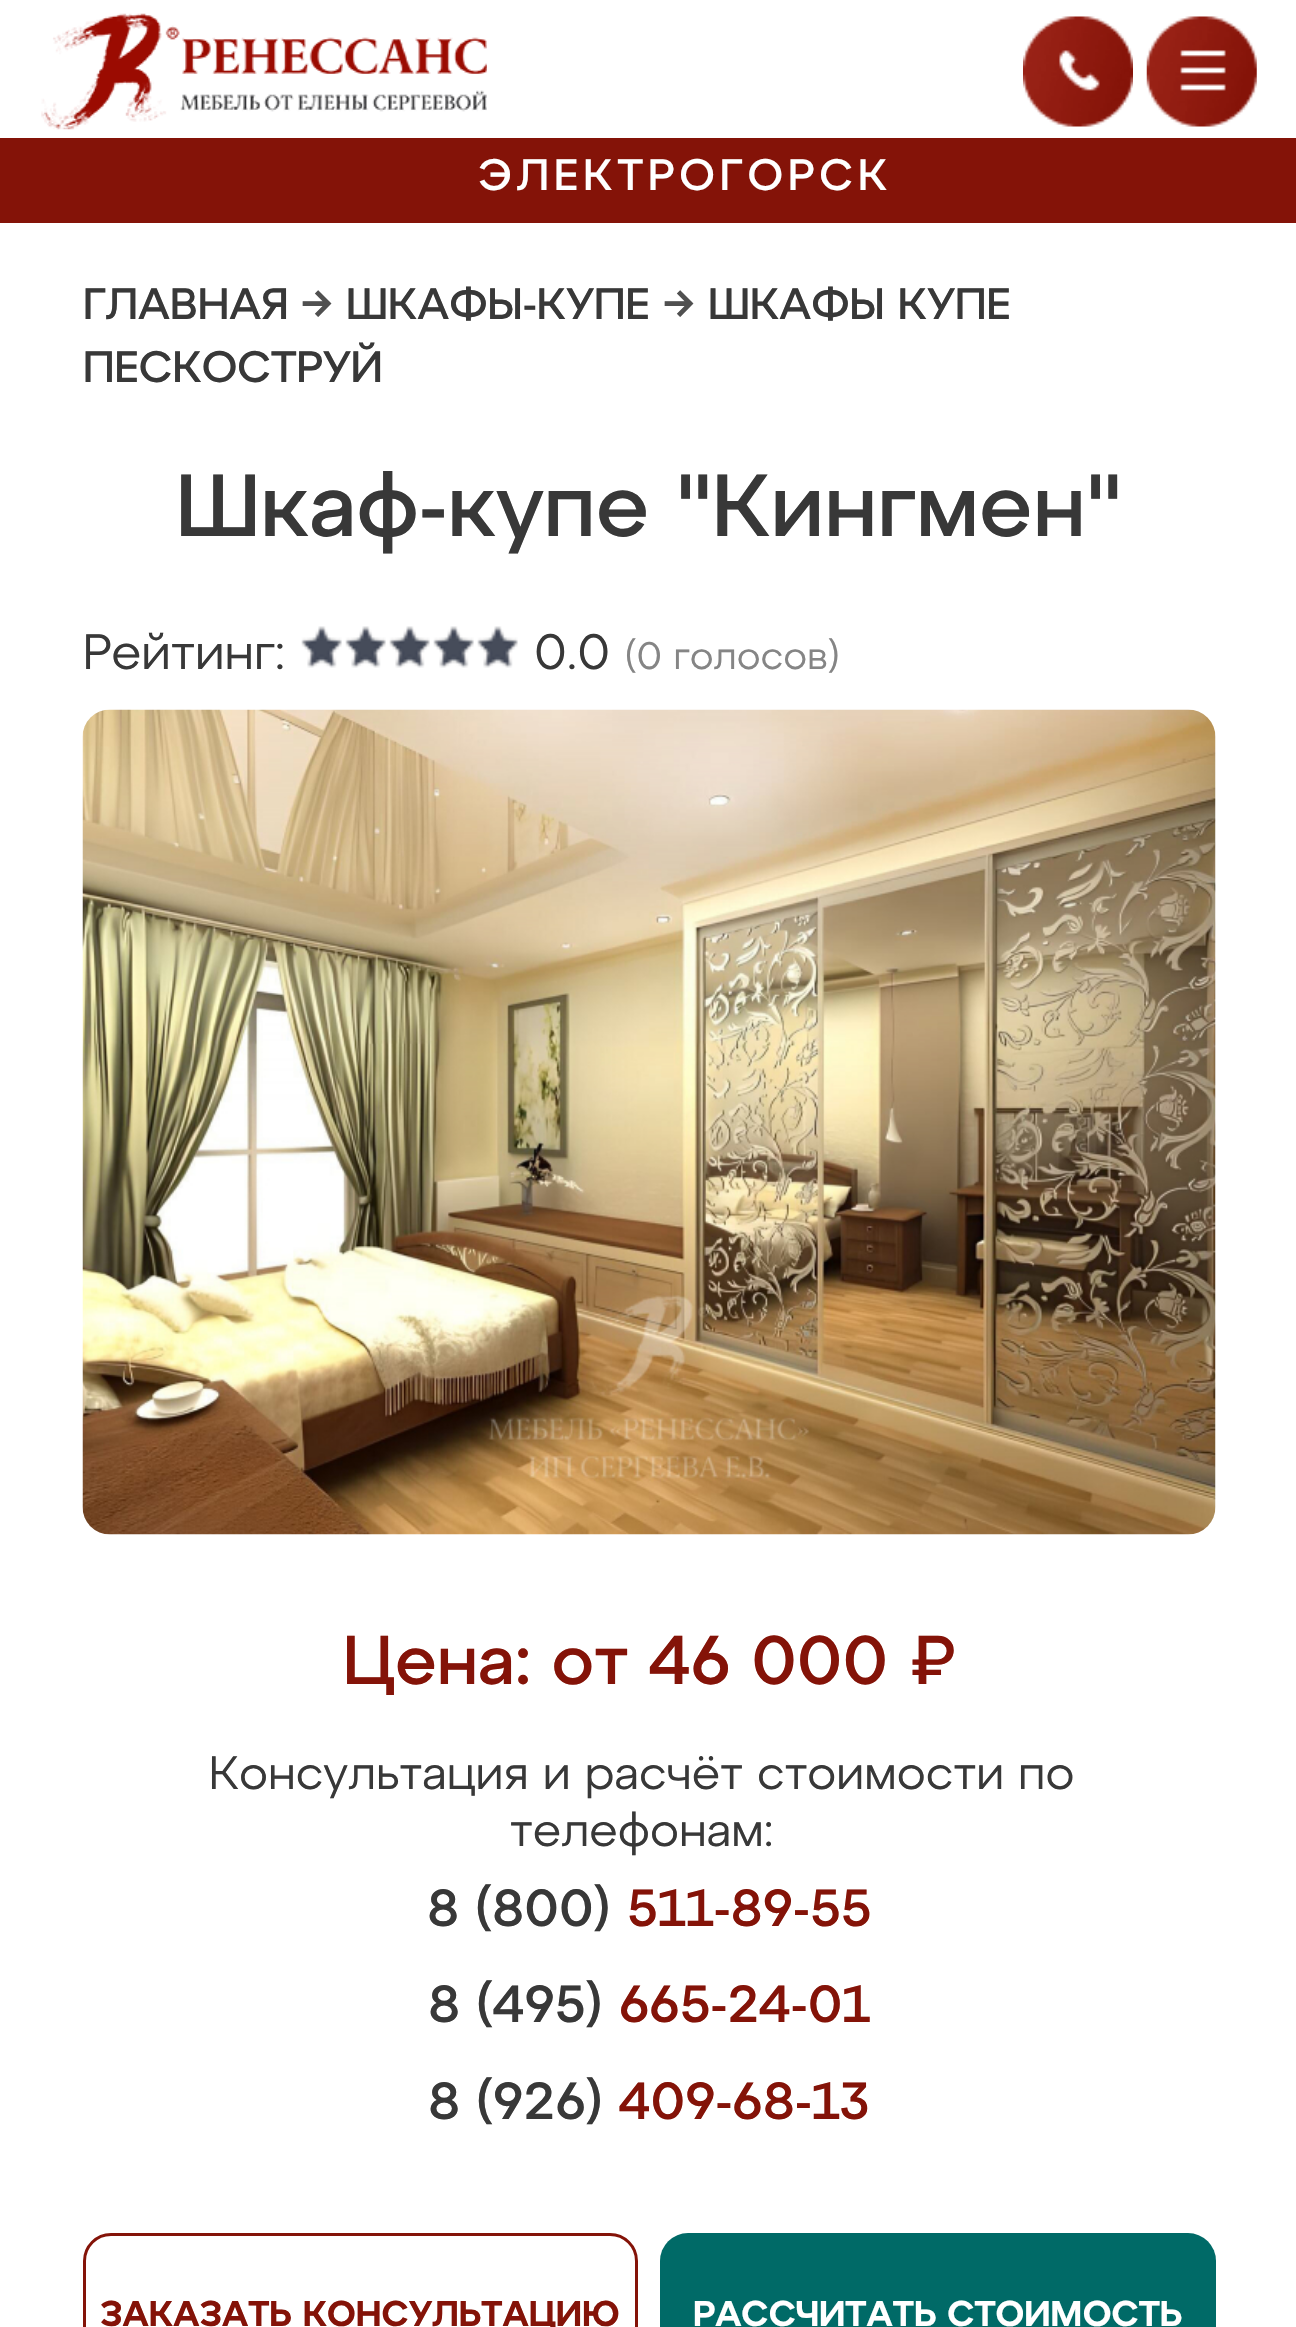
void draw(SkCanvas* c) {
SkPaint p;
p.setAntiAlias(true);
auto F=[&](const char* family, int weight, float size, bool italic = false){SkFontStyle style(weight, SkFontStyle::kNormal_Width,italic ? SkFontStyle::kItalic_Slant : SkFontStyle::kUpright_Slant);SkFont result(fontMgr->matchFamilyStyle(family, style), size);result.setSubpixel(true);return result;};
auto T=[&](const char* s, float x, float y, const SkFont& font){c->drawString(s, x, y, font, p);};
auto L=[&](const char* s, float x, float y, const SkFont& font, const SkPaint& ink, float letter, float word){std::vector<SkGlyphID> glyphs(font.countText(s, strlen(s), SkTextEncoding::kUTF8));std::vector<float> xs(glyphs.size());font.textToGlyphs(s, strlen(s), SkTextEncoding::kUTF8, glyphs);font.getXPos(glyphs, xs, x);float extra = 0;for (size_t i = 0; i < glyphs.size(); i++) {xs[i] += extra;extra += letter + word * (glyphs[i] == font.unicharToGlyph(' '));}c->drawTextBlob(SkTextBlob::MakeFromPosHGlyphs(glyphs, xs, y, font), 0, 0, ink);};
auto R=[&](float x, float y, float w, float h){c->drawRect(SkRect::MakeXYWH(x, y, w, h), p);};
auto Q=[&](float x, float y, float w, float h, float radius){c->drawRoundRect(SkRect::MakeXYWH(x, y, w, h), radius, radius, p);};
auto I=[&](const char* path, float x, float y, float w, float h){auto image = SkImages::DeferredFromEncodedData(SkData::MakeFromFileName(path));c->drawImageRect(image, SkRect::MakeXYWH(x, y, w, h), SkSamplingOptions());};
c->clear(0xffffffff);
I("1.png",41,13,446,117);
I("2.png",1023,16,110,111);
I("3.png",1146,16,111,111);
p.setColor(0xff841308);
R(0,138,1296,85);
auto f1 = F("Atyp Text",500,44);
p.setColor(0xffffffff);
L("ЭЛЕКТРОГОРСК",478,190,f1,p,5,0);
p.setColor(0xff383838);
T("ГЛАВНАЯ",83,319,f1);
p.setColor(0xff505050);
T("→",301,319,f1);
p.setColor(0xff383838);
T("ШКАФЫ-КУПЕ",346,319,f1);
p.setColor(0xff505050);
T("→",663,319,f1);
p.setColor(0xff383838);
T("ШКАФЫ КУПЕ",708,319,f1);
T("ПЕСКОСТРУЙ",83,382,f1);
auto f2 = F("Atyp Text",500,88);
T("Шкаф-купе \"Кингмен\"",176,536,f2);
auto f3 = F("Atyp Text",400,49.5);
T("Рейтинг:",83,669,f3);
I("4.png",301,626,217,42);
T("0.0",534,669,f3);
auto f4 = F("Atyp Text",400,38.5);
p.setColor(0xff858585);
T("(0 голосов)",625,669,f4);
I("5.png",82,709,1134,826);
auto f5 = F("Atyp Text",500,68.75);
p.setColor(0xff841308);
T("Цена: от 46 000 ₽",343,1684,f5);
auto f6 = F("Atyp Text",400,46.75);
p.setColor(0xff383838);
T("Консультация и расчёт стоимости по",209,1789,f6);
T("телефонам:",510,1846,f6);
auto f7 = F("Atyp Text",500,52.25);
T("8 (800)",427,1926,f7);
p.setColor(0xff841308);
T("511-89-55",627,1926,f7);
p.setColor(0xff383838);
T("8 (495)",428,2022,f7);
p.setColor(0xff841308);
T("665-24-01",619,2022,f7);
p.setColor(0xff383838);
T("8 (926)",428,2119,f7);
p.setColor(0xff841308);
T("409-68-13",619,2119,f7);
p.setStroke(true);
p.setStrokeWidth(3);
c->drawRoundRect(SkRect::MakeXYWH(84.5,2234.5,552,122),26.5,26.5,p);
auto f8 = F("Atyp Text",600,35.75);
p.setStroke(false);
T("ЗАКАЗАТЬ КОНСУЛЬТАЦИЮ",100,2326,f8);
p.setColor(0xff006a67);
Q(660,2233,556,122,28);
p.setColor(0xffffffff);
T("РАССЧИТАТЬ СТОИМОСТЬ",693,2326,f8);
}
